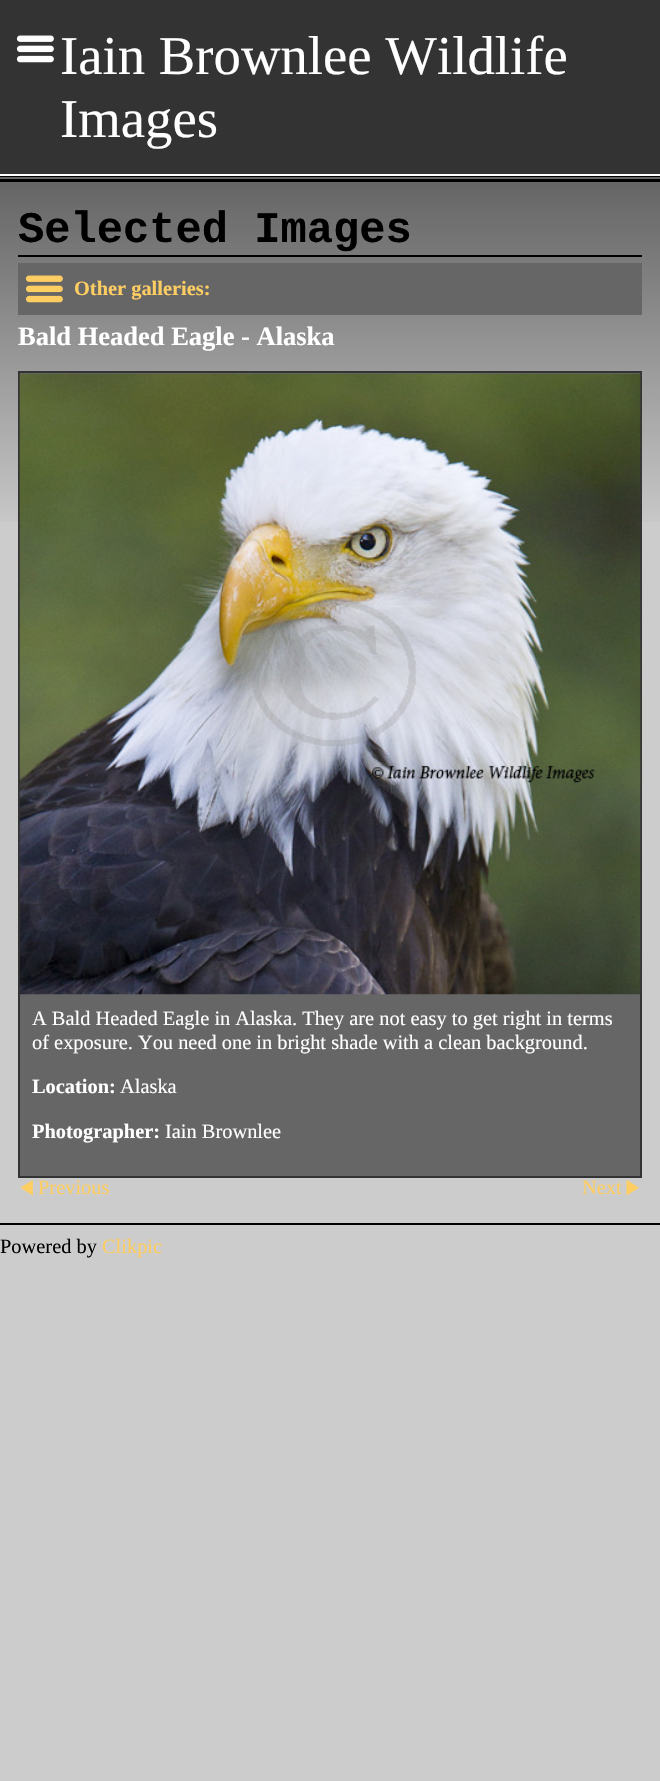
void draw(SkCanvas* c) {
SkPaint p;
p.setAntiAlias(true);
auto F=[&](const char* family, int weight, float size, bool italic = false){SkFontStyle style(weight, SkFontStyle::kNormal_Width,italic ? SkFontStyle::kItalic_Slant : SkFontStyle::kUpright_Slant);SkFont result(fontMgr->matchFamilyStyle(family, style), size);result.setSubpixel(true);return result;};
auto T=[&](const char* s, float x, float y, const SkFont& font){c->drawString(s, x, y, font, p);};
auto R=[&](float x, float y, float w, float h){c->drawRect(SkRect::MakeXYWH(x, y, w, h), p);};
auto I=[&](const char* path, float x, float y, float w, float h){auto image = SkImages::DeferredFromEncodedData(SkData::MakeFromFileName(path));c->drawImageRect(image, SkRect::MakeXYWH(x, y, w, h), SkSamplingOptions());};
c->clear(0xffcccccc);
p.setColor(0xff333333);
R(0,0,660,174);
p.setColor(0xffffffff);
R(0,174,660,2);
I("1.png",16,35,38,28);
auto f1 = F("Liberation Serif",400,54.75);
T("Iain Brownlee Wildlife",60,74,f1);
T("Images",60,137,f1);
I("2.png",0,182,660,340);
p.setColor(0xff000000);
R(0,176,660,1);
p.setColor(0xff666666);
R(0,177,660,2);
p.setColor(0xff000000);
R(0,179,660,3);
R(18,255,624,2);
auto f2 = F("Liberation Mono",700,43.75);
T("Selected Images",18,242,f2);
p.setColor(0xff666666);
R(18,263,624,52);
I("3.png",25,275,38,28);
auto f3 = F("Liberation Serif",700,20.4);
p.setColor(0xffffce63);
T("Other galleries:",74,295,f3);
auto f4 = F("Liberation Serif",700,26.5);
p.setColor(0xffffffff);
T("Bald Headed Eagle - Alaska",18,345,f4);
p.setColor(0xff666666);
c->drawRect(SkRect::MakeXYWH(19,372,622,805),p);
p.setStroke(true);
p.setStrokeWidth(2);
p.setColor(0xff333333);
c->drawRect(SkRect::MakeXYWH(19,372,622,805),p);
I("4.png",19,373,622,622);
auto f5 = F("Liberation Serif",400,20.4);
p.setStroke(false);
p.setColor(0xffffffff);
T("A Bald Headed Eagle in Alaska. They are not easy to get right in terms",32,1025,f5);
T("of exposure. You need one in bright shade with a clean background.",32,1049,f5);
T("Location:",32,1093,f3);
T("Alaska",120,1093,f5);
T("Photographer:",32,1138,f3);
T("Iain Brownlee",165,1138,f5);
I("5.png",20,1180,13,16);
p.setColor(0xffffce63);
T("Previous",38,1194,f5);
T("Next",582,1194,f5);
I("6.png",626,1180,13,16);
p.setColor(0xff000000);
R(0,1223,660,2);
T("Powered by",0,1253,f5);
p.setColor(0xffffce63);
T("Clikpic",102,1253,f5);
}
